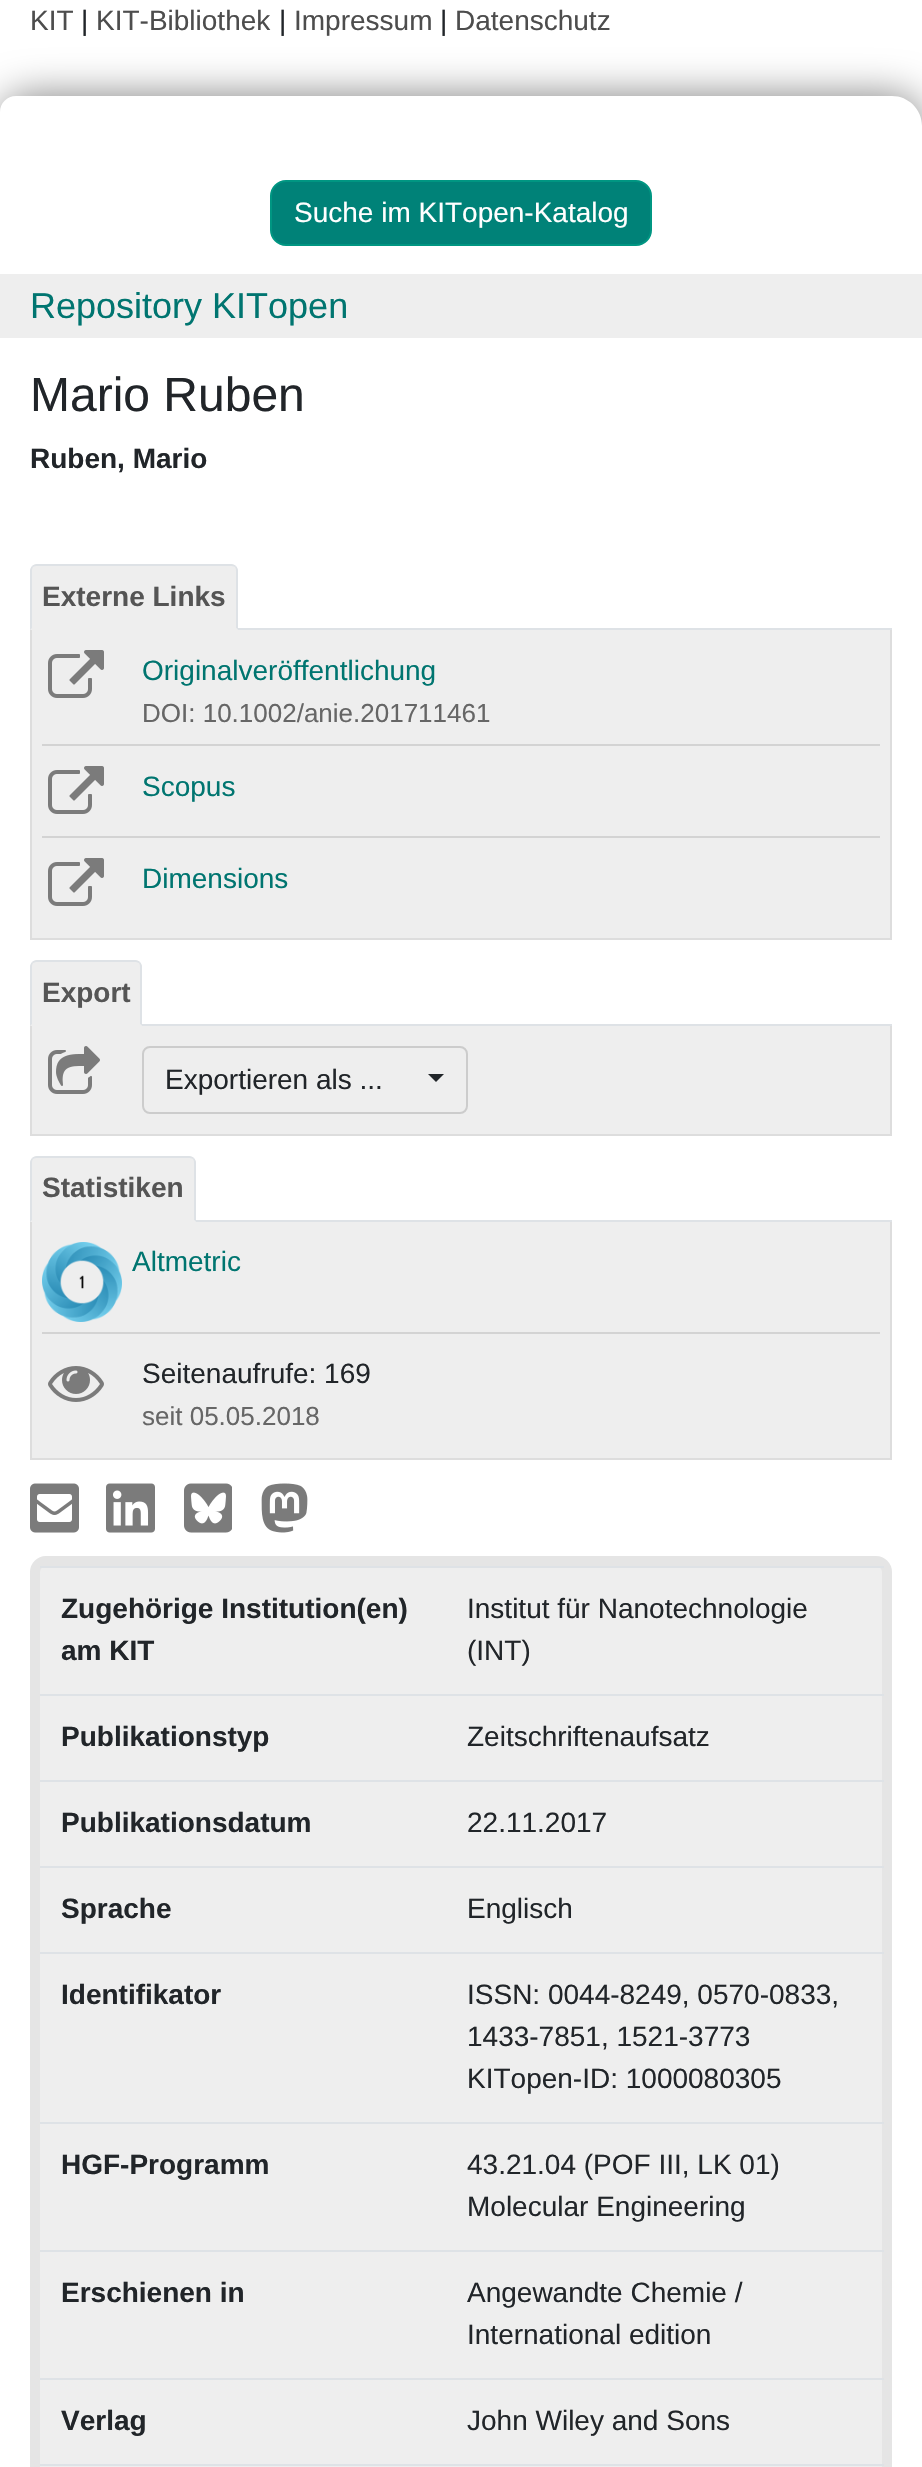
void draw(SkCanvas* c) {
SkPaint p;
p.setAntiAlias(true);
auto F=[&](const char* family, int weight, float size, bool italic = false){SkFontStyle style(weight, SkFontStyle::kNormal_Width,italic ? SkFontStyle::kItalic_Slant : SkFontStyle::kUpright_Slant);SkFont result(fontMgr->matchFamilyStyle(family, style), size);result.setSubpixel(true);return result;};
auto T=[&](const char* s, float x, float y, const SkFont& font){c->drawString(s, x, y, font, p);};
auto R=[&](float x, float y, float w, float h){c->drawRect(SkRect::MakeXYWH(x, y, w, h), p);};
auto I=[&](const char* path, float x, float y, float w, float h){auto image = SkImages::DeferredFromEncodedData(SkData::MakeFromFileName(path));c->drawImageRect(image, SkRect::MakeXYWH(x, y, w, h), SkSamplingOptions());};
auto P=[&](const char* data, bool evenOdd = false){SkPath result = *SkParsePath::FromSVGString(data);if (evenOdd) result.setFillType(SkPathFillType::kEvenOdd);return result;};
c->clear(0xffffffff);
auto f1 = F("Liberation Sans",400,28);
p.setColor(0xff4d4d4d);
T("KIT",30,30,f1);
c->save();
c->clipPath(P("M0 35h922v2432h-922zm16 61h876c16.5 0 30 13.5 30 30v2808c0 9-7 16-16 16h-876c-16.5 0-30-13.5-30-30v-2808c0-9 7-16 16-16z",true),true);
p.setColor(0xff808080);
p.setMaskFilter(SkMaskFilter::MakeBlur(kNormal_SkBlurStyle, 20));
c->drawRoundRect(SkRect::MakeXYWH(0,96,922,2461),30,30,p);
p.setMaskFilter(nullptr);
c->restore();
p.setColor(0xff212529);
T("|",81,30,f1);
p.setColor(0xff4d4d4d);
T("KIT-Bibliothek",96,30,f1);
p.setColor(0xff212529);
T("|",279,30,f1);
p.setColor(0xff4d4d4d);
T("Impressum",294,30,f1);
p.setColor(0xff212529);
T("|",440,30,f1);
p.setColor(0xff4d4d4d);
T("Datenschutz",455,30,f1);
p.setColor(0xff008278);
c->drawRoundRect(SkRect::MakeXYWH(271,181,380,64),15,15,p);
p.setStroke(true);
p.setStrokeWidth(2);
p.setColor(0xff009682);
c->drawRoundRect(SkRect::MakeXYWH(271,181,380,64),15,15,p);
p.setStroke(false);
p.setColor(0xffffffff);
T("Suche im KITopen-Katalog",294,222,f1);
p.setColor(0xffeeeeee);
R(0,274,922,64);
auto f2 = F("Liberation Sans",400,36);
p.setColor(0xff007570);
T("Repository KITopen",30,318,f2);
auto f3 = F("Liberation Sans",400,48);
p.setColor(0xff212529);
T("Mario Ruben",30,411,f3);
auto f4 = F("Liberation Sans",700,28);
T("Ruben, Mario",30,468,f4);
p.setColor(0xffdee2e6);
R(238,628,654,2);
p.setColor(0xffeeeeee);
c->drawPath(P("M38 564h192c4.5 0 8 3.5 8 8v58h-208v-58c0-4.5 3.5-8 8-8z"),p);
p.setColor(0xffdee2e6);
c->drawPath(P("M37 564c-2 0-4 1-5 2l1 1c1-1 3-1 4-1h194c1 0 3 0 4 1l1-1c-1-1-3-2-5-2z"),p);
c->drawPath(P("M238 630v-59c0-2-1-4-2-5l-1 1c1 1 1 3 1 4v57z"),p);
p.setColor(0xffeeeeee);
c->drawPath(P("M238 630l-2-2h-204l-2 2z"),p);
p.setColor(0xffdee2e6);
c->drawPath(P("M30 630l2-2v-57c0-1 0-3 1-4l-1-1c-1 1-2 3-2 5z"),p);
p.setColor(0xff555555);
T("Externe Links",42,606,f4);
p.setColor(0xffeeeeee);
R(32,630,858,308);
p.setColor(0xffdddddd);
R(890,630,2,310);
R(30,938,862,2);
R(30,630,2,310);
p.setColor(0xffd3d3d3);
R(42,744,838,2);
I("1.png",48,650,56,48);
p.setColor(0xff007570);
T("Originalveröffentlichung",142,680,f1);
auto f5 = F("Liberation Sans",400,26);
p.setColor(0xff666666);
T("DOI: 10.1002/anie.201711461",142,722,f5);
p.setColor(0xffd3d3d3);
R(42,836,838,2);
I("1.png",48,766,56,48);
p.setColor(0xff007570);
T("Scopus",142,796,f1);
I("1.png",48,858,56,48);
T("Dimensions",142,888,f1);
p.setColor(0xffdee2e6);
R(142,1024,750,2);
p.setColor(0xffeeeeee);
c->drawPath(P("M38 960h96c4.5 0 8 3.5 8 8v58h-112v-58c0-4.5 3.5-8 8-8z"),p);
p.setColor(0xffdee2e6);
c->drawPath(P("M37 960c-2 0-4 1-5 2l1 1l3-1h100l3 1l1-1c-1-1-3-2-5-2z"),p);
c->drawPath(P("M142 1026v-59c0-2-1-4-2-5l-1 1c1 1 1 3 1 4v57z"),p);
p.setColor(0xffeeeeee);
c->drawPath(P("M142 1026l-2-2h-108l-2 2z"),p);
p.setColor(0xffdee2e6);
c->drawPath(P("M30 1026l2-2v-57c0-1 0-3 1-4l-1-1c-1 1-2 3-2 5z"),p);
p.setColor(0xff555555);
T("Export",42,1002,f4);
p.setColor(0xffeeeeee);
R(32,1026,858,108);
p.setColor(0xffdddddd);
R(890,1026,2,110);
R(30,1134,862,2);
R(30,1026,2,110);
I("2.png",48,1046,52,48);
p.setStroke(true);
p.setColor(0xffcccccc);
c->drawRoundRect(SkRect::MakeXYWH(143,1047,324,66),7,7,p);
p.setStroke(false);
p.setColor(0xff212529);
T("Exportieren als ...",165,1089,f1);
c->drawPath(P("M428 1074h16l-8 8z"),p);
p.setColor(0xffdee2e6);
R(196,1220,696,2);
p.setColor(0xffeeeeee);
c->drawPath(P("M38 1156h150c4.5 0 8 3.5 8 8v58h-166v-58c0-4.5 3.5-8 8-8z"),p);
p.setColor(0xffdee2e6);
c->drawPath(P("M37 1156c-2 0-4 1-5 2l1 1c1-1 3-1 4-1h152c1 0 3 0 4 1l1-1c-1-1-3-2-5-2z"),p);
c->drawPath(P("M196 1222v-59c0-2-1-4-2-5l-1 1c1 1 1 3 1 4v57z"),p);
p.setColor(0xffeeeeee);
c->drawPath(P("M196 1222l-2-2h-162l-2 2z"),p);
p.setColor(0xffdee2e6);
c->drawPath(P("M30 1222l2-2v-57c0-1 0-3 1-4l-1-1c-1 1-2 3-2 5z"),p);
p.setColor(0xff555555);
T("Statistiken",42,1197,f4);
p.setColor(0xffeeeeee);
R(32,1222,858,236);
p.setColor(0xffdddddd);
R(890,1222,2,238);
R(30,1458,862,2);
R(30,1222,2,238);
p.setColor(0xffd3d3d3);
R(42,1332,838,2);
I("3.png",42,1242,80,80);
p.setColor(0xff007570);
T("Altmetric",132,1271,f1);
I("4.png",48,1366,56,36);
p.setColor(0xff212529);
T("Seitenaufrufe: 169",142,1383,f1);
p.setColor(0xff666666);
T("seit 05.05.2018",142,1425,f5);
I("5.png",30,1483,49,50);
I("6.png",106,1483,49,50);
I("7.png",184,1483,48,50);
I("8.png",261,1483,47,50);
p.setColor(0xffeeeeee);
c->drawRoundRect(SkRect::MakeXYWH(35,1561,852,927),11,11,p);
p.setStroke(true);
p.setStrokeWidth(10);
p.setColor(0xffe5e5e5);
c->drawRoundRect(SkRect::MakeXYWH(35,1561,852,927),11,11,p);
p.setStroke(false);
p.setColor(0xff212529);
T("Zugehörige Institution(en)",61,1618,f4);
T("am KIT",61,1660,f4);
p.setColor(0xffdee2e6);
R(40,1566,844,2);
p.setColor(0xff212529);
T("Institut für Nanotechnologie",467,1618,f1);
T("(INT)",467,1660,f1);
T("Publikationstyp",61,1746,f4);
p.setColor(0xffdee2e6);
R(40,1694,844,2);
p.setColor(0xff212529);
T("Zeitschriftenaufsatz",467,1746,f1);
T("Publikationsdatum",61,1832,f4);
p.setColor(0xffdee2e6);
R(40,1780,844,2);
p.setColor(0xff212529);
T("22.11.2017",467,1832,f1);
T("Sprache",61,1918,f4);
p.setColor(0xffdee2e6);
R(40,1866,844,2);
p.setColor(0xff212529);
T("Englisch",467,1918,f1);
T("Identifikator",61,2004,f4);
p.setColor(0xffdee2e6);
R(40,1952,844,2);
p.setColor(0xff212529);
T("ISSN: 0044-8249, 0570-0833,",467,2004,f1);
T("1433-7851, 1521-3773",467,2046,f1);
T("KITopen-ID: 1000080305",467,2088,f1);
T("HGF-Programm",61,2174,f4);
p.setColor(0xffdee2e6);
R(40,2122,844,2);
p.setColor(0xff212529);
T("43.21.04 (POF III, LK 01)",467,2174,f1);
T("Molecular Engineering",467,2216,f1);
T("Erschienen in",61,2302,f4);
p.setColor(0xffdee2e6);
R(40,2250,844,2);
p.setColor(0xff212529);
T("Angewandte Chemie /",467,2302,f1);
T("International edition",467,2344,f1);
T("Verlag",61,2430,f4);
p.setColor(0xffdee2e6);
R(40,2378,844,2);
p.setColor(0xff212529);
T("John Wiley and Sons",467,2430,f1);
p.setColor(0xffdee2e6);
R(40,2464,844,2);
}
